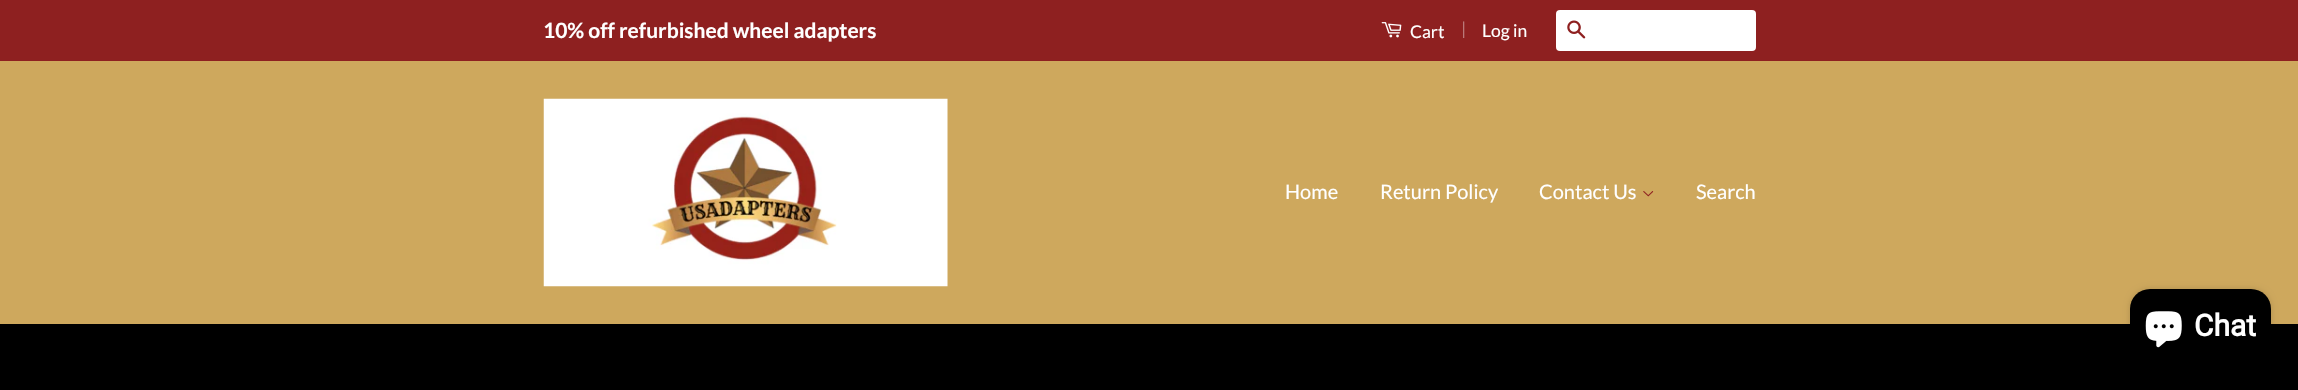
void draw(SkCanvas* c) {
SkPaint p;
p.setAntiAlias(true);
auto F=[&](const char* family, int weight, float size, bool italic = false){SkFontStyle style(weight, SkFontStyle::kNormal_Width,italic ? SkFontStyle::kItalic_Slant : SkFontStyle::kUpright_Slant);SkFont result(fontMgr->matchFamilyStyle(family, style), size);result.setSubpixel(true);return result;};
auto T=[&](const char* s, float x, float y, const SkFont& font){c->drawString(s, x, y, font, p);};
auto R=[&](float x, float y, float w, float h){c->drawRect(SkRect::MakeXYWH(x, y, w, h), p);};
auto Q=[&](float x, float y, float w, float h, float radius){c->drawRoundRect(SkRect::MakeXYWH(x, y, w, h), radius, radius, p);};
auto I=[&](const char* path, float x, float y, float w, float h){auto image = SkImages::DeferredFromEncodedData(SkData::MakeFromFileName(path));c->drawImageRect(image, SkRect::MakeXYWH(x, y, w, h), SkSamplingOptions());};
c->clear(0xff000000);
p.setColor(0xff8e2020);
R(0,0,2298,61);
auto f1 = F("Lato",700,21);
p.setColor(0xffffffff);
T("10% off refurbished wheel adapters",543,38,f1);
I("1.png",1381,22,21,16);
auto f2 = F("Lato",400,17.5);
T("Cart",1410,38,f2);
p.setColor(0xffbb7979);
T("|",1461,35,f2);
p.setColor(0xffffffff);
T("Log in",1482,37,f2);
Q(1556,10,200,41,4);
I("2.png",1567,20,19,19);
p.setColor(0xffcea85d);
R(0,61,2298,263);
I("3.png",543,98,405,189);
auto f3 = F("Lato",400,20);
p.setColor(0xffffffff);
T("Home",1285,199,f3);
T("Return Policy",1380,199,f3);
T("Contact Us",1539,199,f3);
I("4.png",1643,191,11,6);
T("Search",1696,199,f3);
p.setColor(0x26000000);
p.setMaskFilter(SkMaskFilter::MakeBlur(kNormal_SkBlurStyle, 3));
c->drawRoundRect(SkRect::MakeXYWH(2130,289,141,75),20,20,p);
p.setMaskFilter(nullptr);
p.setColor(0xff000000);
Q(2130,289,141,75,20);
I("5.png",2145,311,37,37);
auto f4 = F("Roboto",700,30);
p.setColor(0xffffffff);
T("Chat",2194,336,f4);
}
